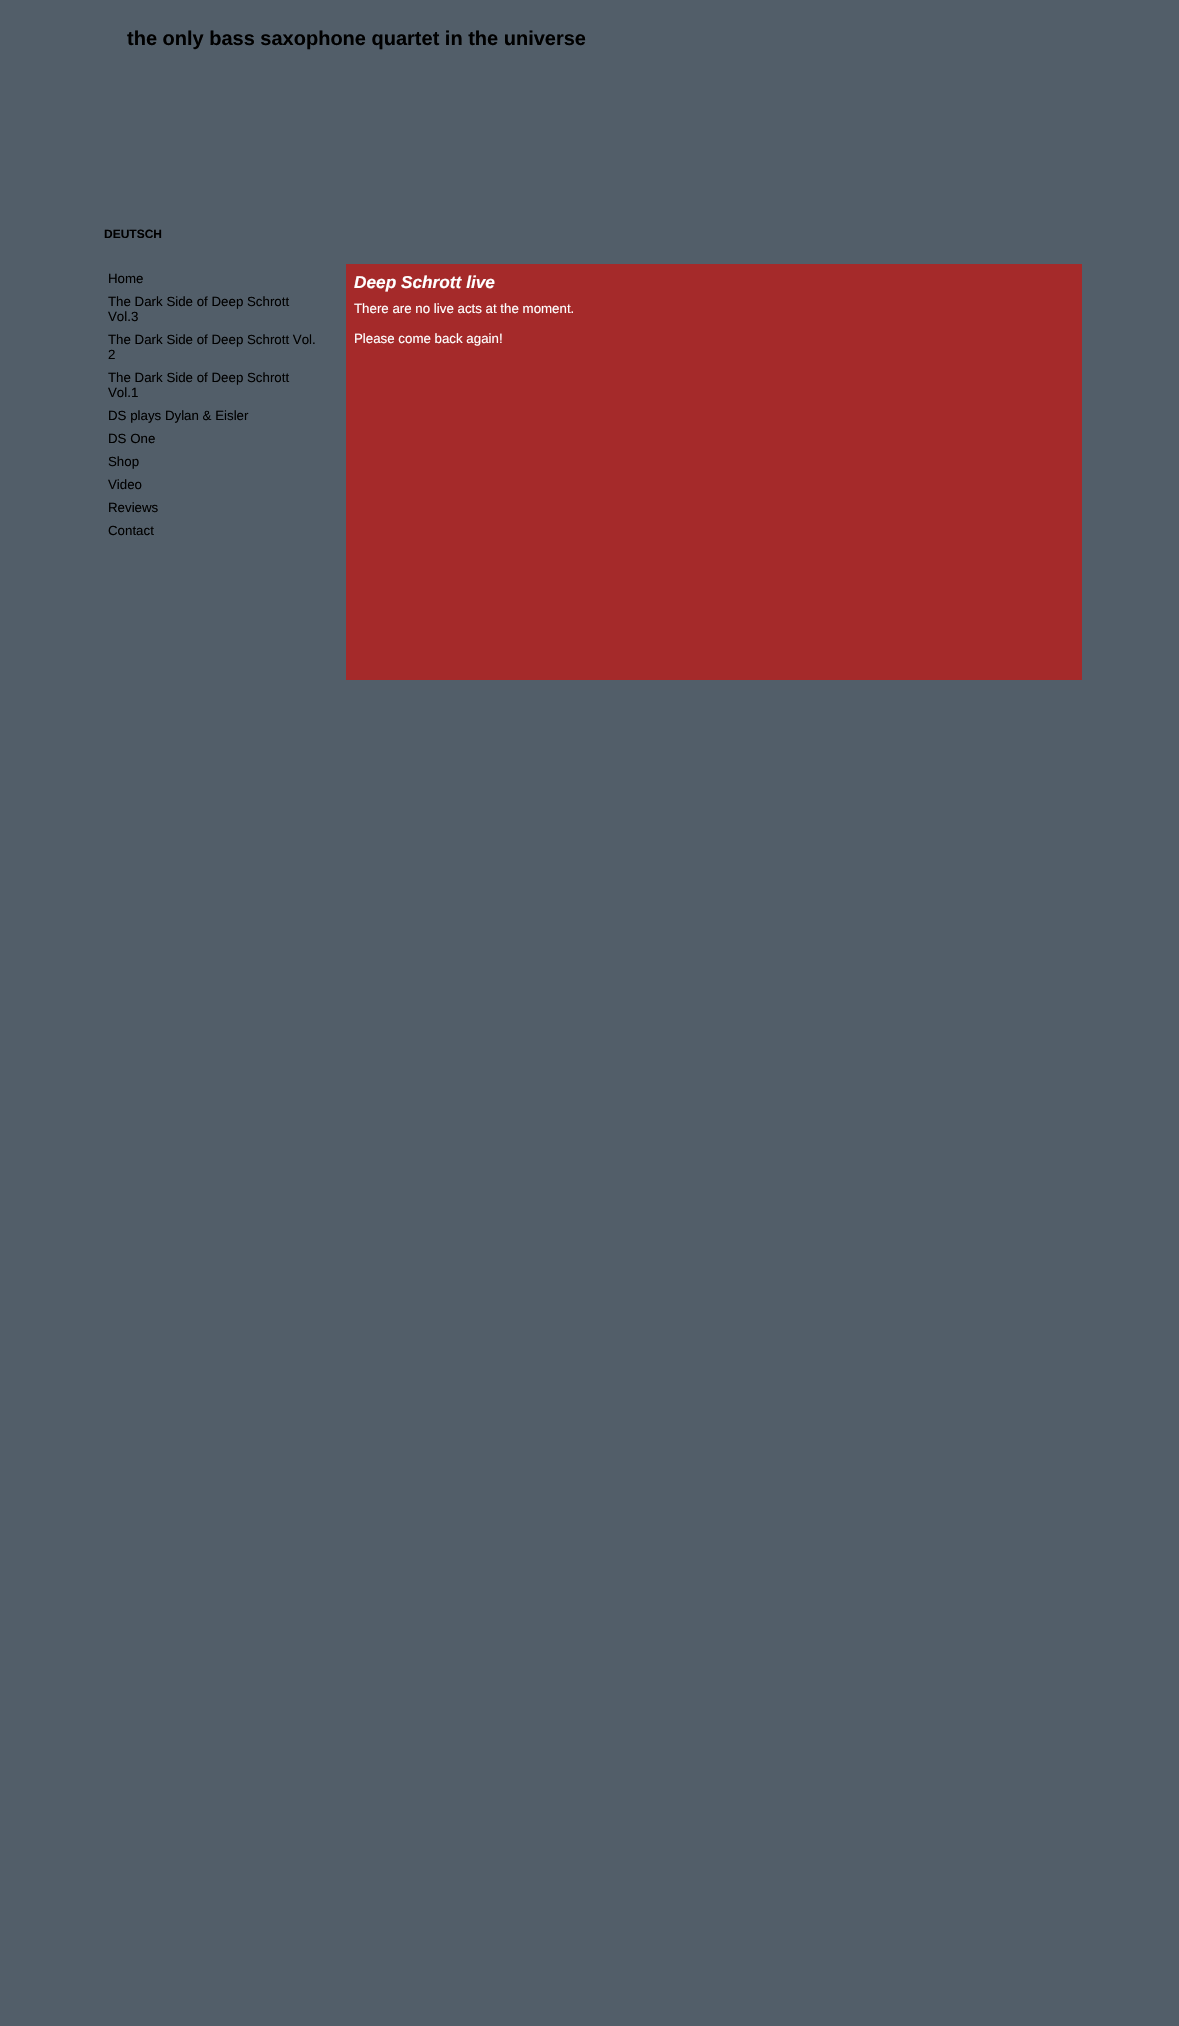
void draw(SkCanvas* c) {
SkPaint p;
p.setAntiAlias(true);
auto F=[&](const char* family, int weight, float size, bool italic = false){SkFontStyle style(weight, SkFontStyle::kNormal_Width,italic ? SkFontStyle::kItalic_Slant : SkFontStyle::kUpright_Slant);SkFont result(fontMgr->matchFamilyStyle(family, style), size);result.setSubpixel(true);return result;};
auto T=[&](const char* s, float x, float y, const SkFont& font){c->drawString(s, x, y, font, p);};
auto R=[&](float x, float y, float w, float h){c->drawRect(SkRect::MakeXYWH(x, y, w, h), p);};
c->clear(0xff525e69);
auto f1 = F("Liberation Sans",700,20);
p.setColor(0xff000000);
T("the only bass saxophone quartet in the universe",127,45,f1);
auto f2 = F("Liberation Sans",700,12);
T("DEUTSCH",104,238,f2);
auto f3 = F("Liberation Sans",400,13.3);
T("Home",108,283,f3);
T("The Dark Side of Deep Schrott",108,306,f3);
T("Vol.3",108,321,f3);
T("The Dark Side of Deep Schrott Vol.",108,344,f3);
T("2",108,359,f3);
T("The Dark Side of Deep Schrott",108,382,f3);
T("Vol.1",108,397,f3);
T("DS plays Dylan & Eisler",108,420,f3);
T("DS One",108,443,f3);
T("Shop",108,466,f3);
T("Video",108,489,f3);
T("Reviews",108,512,f3);
T("Contact",108,535,f3);
p.setColor(0xffa52a2a);
R(346,264,736,416);
auto f4 = F("Liberation Sans",700,17.25,true);
p.setColor(0xffffffff);
T("Deep Schrott live",354,288,f4);
T("There are no live acts at the moment.",354,313,f3);
T("Please come back again!",354,343,f3);
}
